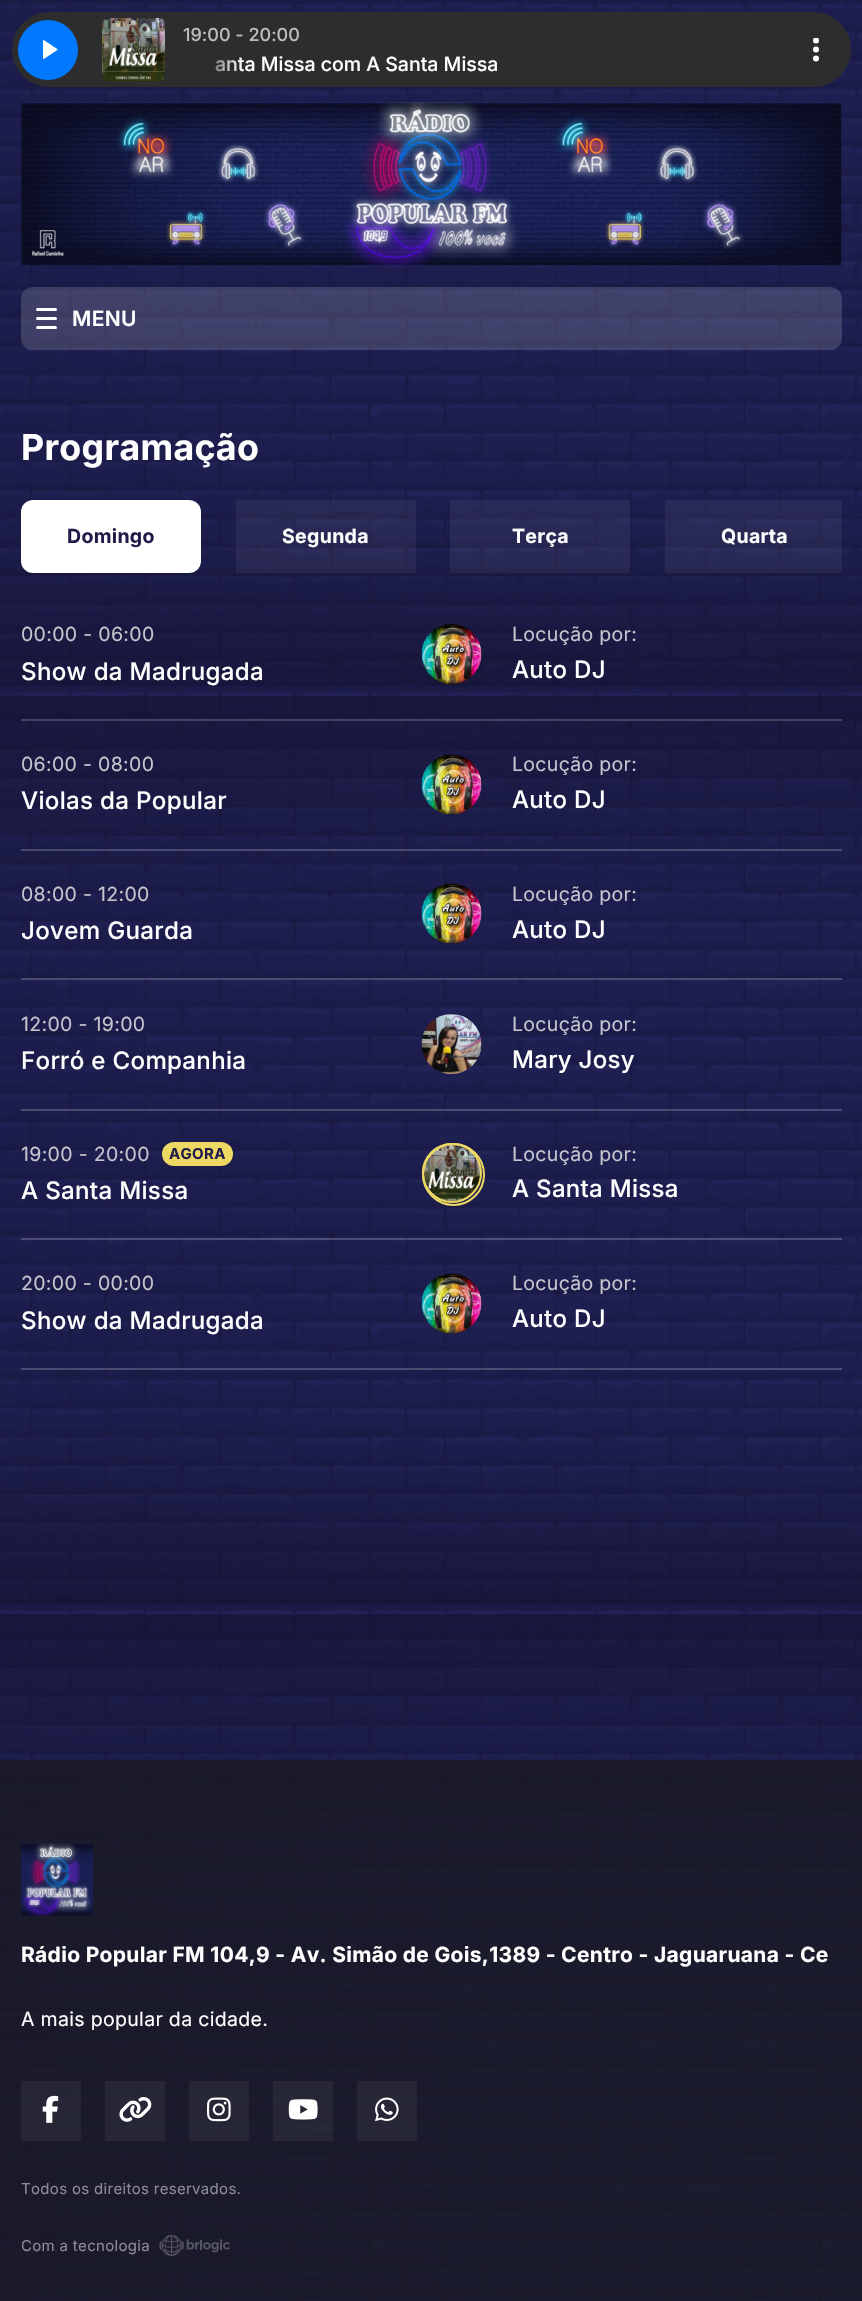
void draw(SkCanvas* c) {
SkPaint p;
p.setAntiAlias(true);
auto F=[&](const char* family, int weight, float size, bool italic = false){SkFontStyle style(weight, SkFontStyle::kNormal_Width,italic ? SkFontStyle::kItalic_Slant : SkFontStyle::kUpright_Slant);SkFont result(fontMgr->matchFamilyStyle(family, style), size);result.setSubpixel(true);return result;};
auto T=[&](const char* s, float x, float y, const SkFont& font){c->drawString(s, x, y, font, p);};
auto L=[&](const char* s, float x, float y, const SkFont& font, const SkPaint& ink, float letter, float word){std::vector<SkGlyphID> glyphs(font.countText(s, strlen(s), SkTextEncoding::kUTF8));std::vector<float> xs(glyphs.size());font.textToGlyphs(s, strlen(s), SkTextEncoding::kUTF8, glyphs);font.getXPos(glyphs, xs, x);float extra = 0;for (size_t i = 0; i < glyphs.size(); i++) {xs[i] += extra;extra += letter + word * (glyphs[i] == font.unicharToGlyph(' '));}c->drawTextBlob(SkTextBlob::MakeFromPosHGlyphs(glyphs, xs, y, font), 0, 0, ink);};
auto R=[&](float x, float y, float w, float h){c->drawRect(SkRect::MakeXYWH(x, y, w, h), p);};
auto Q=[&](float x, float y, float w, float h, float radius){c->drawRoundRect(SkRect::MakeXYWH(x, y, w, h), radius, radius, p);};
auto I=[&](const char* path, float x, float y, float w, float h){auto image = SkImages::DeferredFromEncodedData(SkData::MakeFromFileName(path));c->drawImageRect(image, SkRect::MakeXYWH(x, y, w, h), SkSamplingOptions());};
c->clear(0xff1f1b4a);
I("1.png",0,0,862,2301);
p.setColor(0xff2d2d2d);
Q(12,12,839,75,37.5);
p.setColor(0xff0079ff);
c->drawCircle(48,50,30,p);
I("2.png",43,40,15,19);
I("3.png",102,18,63,63);
auto f1 = F("Inter",500,18);
p.setColor(0xffbdbdbd);
T("19:00 - 20:00",183,41,f1);
auto f2 = F("Inter",500,19.5);
p.setColor(0xffffffff);
T("anta Missa com A Santa Missa",215,71,f2);
{
const SkColor colors[] = {0xff2d2d2d,0x002d2d2d};
const float stops[] = {.2,1};
const SkPoint ends[] = {{183,64}, {242,64}};
p.setShader(SkGradientShader::MakeLinear(ends, colors, stops, 2, SkTileMode::kClamp));
p.setAlpha(255);
}
R(215,58,26,14);
p.setShader(nullptr);
p.setColor(0xffffffff);
c->drawCircle(816,58.5,3,p);
c->drawCircle(816,49.5,3,p);
c->save();
c->clipRect(SkRect::MakeXYWH(813,38,6,24));
c->drawCircle(816,40.5,3,p);
c->restore();
I("4.png",21,102,821,164);
p.setColor(0x26ffffff);
Q(21,287,821,63,12);
p.setColor(0xffffffff);
Q(36,308,21,3,1.5);
Q(36,317,21,3,1.5);
Q(36,326,21,3,1.5);
auto f3 = F("Inter",600,21);
L("MENU",72,326,f3,p,.32,0);
auto f4 = F("Inter",700,35.75);
L("Programação",21,460,f4,p,.32,0);
Q(21,500,180,73,12);
auto f5 = F("Inter",700,19.5);
p.setColor(0xff1f1b4a);
L("Domingo",67,543,f5,p,.32,0);
p.setColor(0x0dffffff);
R(236,500,180,73);
p.setColor(0xffffffff);
L("Segunda",282,543,f5,p,.32,0);
p.setColor(0x0dffffff);
R(450,500,180,73);
p.setColor(0xffffffff);
L("Terça",512,543,f5,p,.32,0);
p.setColor(0x0dffffff);
R(665,500,177,73);
p.setColor(0xffffffff);
L("Quarta",721,543,f5,p,.32,0);
p.setColor(0x33ffffff);
R(21,719,821,2);
auto f6 = F("Inter",400,19.5);
p.setColor(0xffc5c5cf);
L("00:00 - 06:00",21,641,f6,p,.32,0);
auto f7 = F("Inter",500,24.1);
p.setColor(0xffffffff);
L("Show da Madrugada",21,680,f7,p,.32,0);
I("5.png",421,624,61,60);
p.setColor(0xffc5c5cf);
L("Locução por:",512,641,f6,p,.32,0);
auto f8 = F("Inter",500,24);
p.setColor(0xffffffff);
L("Auto DJ",512,678,f8,p,.32,0);
p.setColor(0x33ffffff);
R(21,849,821,2);
p.setColor(0xffc5c5cf);
L("06:00 - 08:00",21,771,f6,p,.32,0);
p.setColor(0xffffffff);
L("Violas da Popular",21,809,f7,p,.32,0);
I("6.png",421,754,61,61);
p.setColor(0xffc5c5cf);
L("Locução por:",512,771,f6,p,.32,0);
p.setColor(0xffffffff);
L("Auto DJ",512,808,f8,p,.32,0);
p.setColor(0x33ffffff);
R(21,978,821,2);
p.setColor(0xffc5c5cf);
L("08:00 - 12:00",21,901,f6,p,.32,0);
p.setColor(0xffffffff);
L("Jovem Guarda",21,939,f7,p,.32,0);
I("7.png",421,883,61,61);
p.setColor(0xffc5c5cf);
L("Locução por:",512,901,f6,p,.32,0);
p.setColor(0xffffffff);
L("Auto DJ",512,938,f8,p,.32,0);
p.setColor(0x33ffffff);
R(21,1109,821,2);
p.setColor(0xffc5c5cf);
L("12:00 - 19:00",21,1031,f6,p,.32,0);
p.setColor(0xffffffff);
L("Forró e Companhia",21,1069,f7,p,.32,0);
I("8.png",421,1014,61,60);
p.setColor(0xffc5c5cf);
L("Locução por:",512,1031,f6,p,.32,0);
p.setColor(0xffffffff);
L("Mary Josy",512,1068,f8,p,.32,0);
p.setColor(0x33ffffff);
R(21,1238,821,2);
p.setColor(0xffc5c5cf);
L("19:00 - 20:00",21,1161,f6,p,.32,0);
p.setColor(0xffedd863);
Q(162,1142,71,24,12);
auto f9 = F("Inter",700,15);
p.setColor(0xff1f1b4a);
L("AGORA",169,1159,f9,p,.32,0);
p.setColor(0xffffffff);
L("A Santa Missa",21,1199,f7,p,.32,0);
I("9.png",421,1143,61,60);
p.setStroke(true);
p.setStrokeWidth(2);
p.setColor(0xffedd863);
c->drawCircle(453.5,1174.5,30.5,p);
c->drawCircle(452,1173,29,p);
p.setStroke(false);
p.setColor(0xffc5c5cf);
L("Locução por:",512,1161,f6,p,.32,0);
p.setColor(0xffffffff);
L("A Santa Missa",512,1197,f8,p,.32,0);
p.setColor(0x33ffffff);
R(21,1368,821,2);
p.setColor(0xffc5c5cf);
L("20:00 - 00:00",21,1290,f6,p,.32,0);
p.setColor(0xffffffff);
L("Show da Madrugada",21,1329,f7,p,.32,0);
I("10.png",421,1273,61,61);
p.setColor(0xffc5c5cf);
L("Locução por:",512,1290,f6,p,.32,0);
p.setColor(0xffffffff);
L("Auto DJ",512,1327,f8,p,.32,0);
p.setColor(0xb318181d);
R(0,1760,862,541);
I("11.png",21,1843,72,73);
auto f10 = F("Inter",700,21);
p.setColor(0xffffffff);
L("Rádio Popular FM 104,9 - Av. Simão de Gois,1389 - Centro - Jaguaruana - Ce",21,1962,f10,p,.32,0);
L("A mais popular da cidade.",21,2026,f6,p,.32,0);
p.setColor(0x0dffffff);
R(21,2081,60,60);
I("12.png",42,2095,17,28);
R(105,2081,60,60);
I("13.png",119,2097,33,25);
R(189,2081,60,60);
I("14.png",207,2097,24,25);
R(273,2081,60,60);
I("15.png",288,2099,30,21);
R(357,2081,60,60);
I("16.png",375,2097,24,25);
auto f11 = F("Inter",400,15);
p.setColor(0xff8c8c95);
L("Todos os direitos reservados.",21,2194,f11,p,.32,0);
L("Com a tecnologia",21,2251,f11,p,.32,0);
I("17.png",159,2235,71,21);
}
